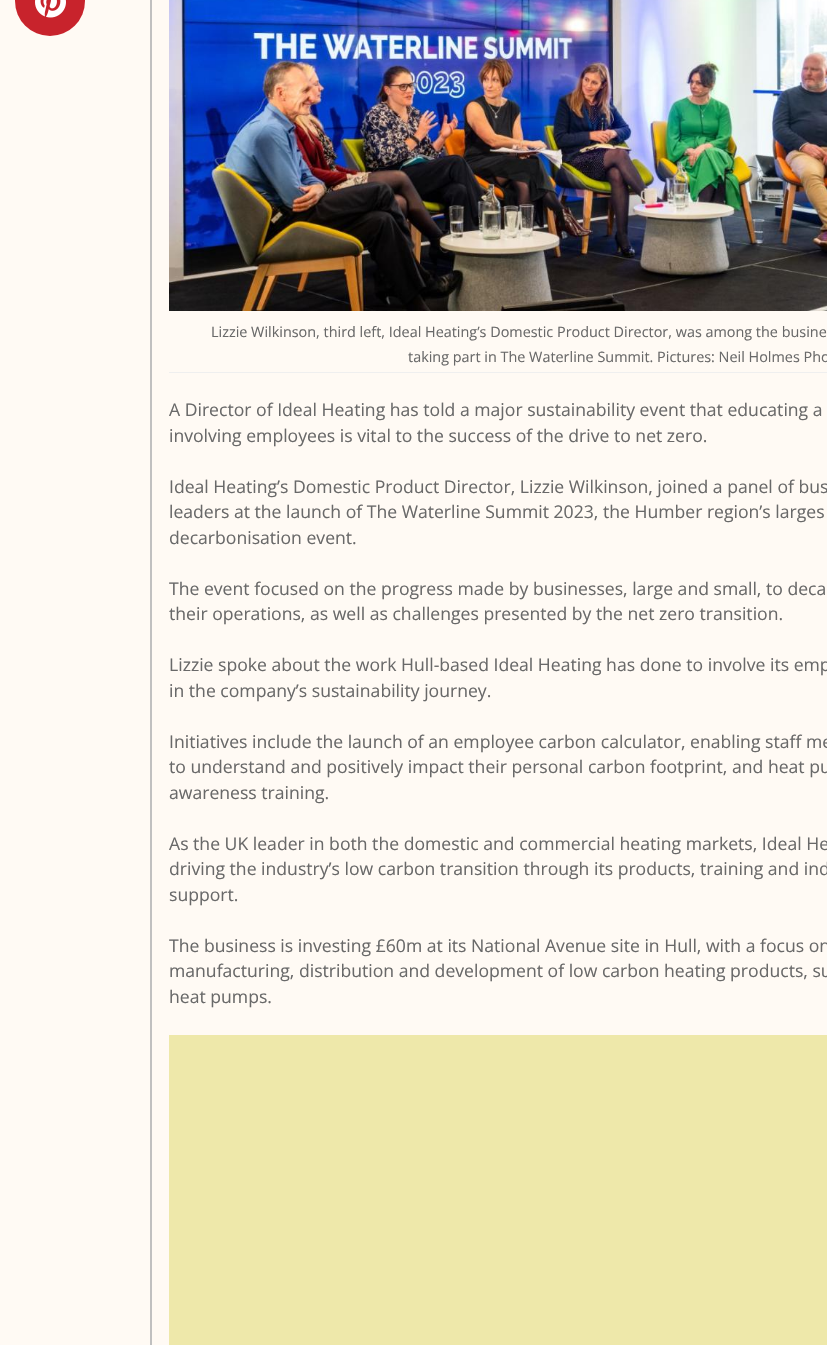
void draw(SkCanvas* c) {
SkPaint p;
p.setAntiAlias(true);
auto F=[&](const char* family, int weight, float size, bool italic = false){SkFontStyle style(weight, SkFontStyle::kNormal_Width,italic ? SkFontStyle::kItalic_Slant : SkFontStyle::kUpright_Slant);SkFont result(fontMgr->matchFamilyStyle(family, style), size);result.setSubpixel(true);return result;};
auto T=[&](const char* s, float x, float y, const SkFont& font){c->drawString(s, x, y, font, p);};
auto R=[&](float x, float y, float w, float h){c->drawRect(SkRect::MakeXYWH(x, y, w, h), p);};
auto I=[&](const char* path, float x, float y, float w, float h){auto image = SkImages::DeferredFromEncodedData(SkData::MakeFromFileName(path));c->drawImageRect(image, SkRect::MakeXYWH(x, y, w, h), SkSamplingOptions());};
c->clear(0xfffffaf4);
p.setColor(0xffc8232c);
c->drawCircle(50,1,35,p);
I("1.png",35,0,31,18);
p.setColor(0xffc0c0c0);
R(150,0,2,1345);
I("2.png",169,0,658,311);
p.setColor(0xffefefef);
R(169,372,658,1);
auto f1 = F("Open Sans",400,14.4);
p.setColor(0xff696969);
T("Lizzie Wilkinson, third left, Ideal Heating’s Domestic Product Director, was among the busine",211,337,f1);
T("taking part in The Waterline Summit. Pictures: Neil Holmes Pho",408,362,f1);
auto f2 = F("Open Sans",400,17.6);
T("A Director of Ideal Heating has told a major sustainability event that educating a",169,416,f2);
T("involving employees is vital to the success of the drive to net zero.",169,442,f2);
T("Ideal Heating’s Domestic Product Director, Lizzie Wilkinson, joined a panel of bus",169,493,f2);
T("leaders at the launch of The Waterline Summit 2023, the Humber region’s larges",169,518,f2);
T("decarbonisation event.",169,544,f2);
T("The event focused on the progress made by businesses, large and small, to deca",169,595,f2);
T("their operations, as well as challenges presented by the net zero transition.",169,620,f2);
T("Lizzie spoke about the work Hull-based Ideal Heating has done to involve its emp",169,671,f2);
T("in the company’s sustainability journey.",169,697,f2);
T("Initiatives include the launch of an employee carbon calculator, enabling staff me",169,748,f2);
T("to understand and positively impact their personal carbon footprint, and heat pu",169,773,f2);
T("awareness training.",169,799,f2);
T("As the UK leader in both the domestic and commercial heating markets, Ideal He",169,850,f2);
T("driving the industry’s low carbon transition through its products, training and ind",169,875,f2);
T("support.",169,901,f2);
T("The business is investing £60m at its National Avenue site in Hull, with a focus on",169,952,f2);
T("manufacturing, distribution and development of low carbon heating products, su",169,977,f2);
T("heat pumps.",169,1003,f2);
p.setColor(0xffeee8aa);
R(169,1035,658,310);
}
